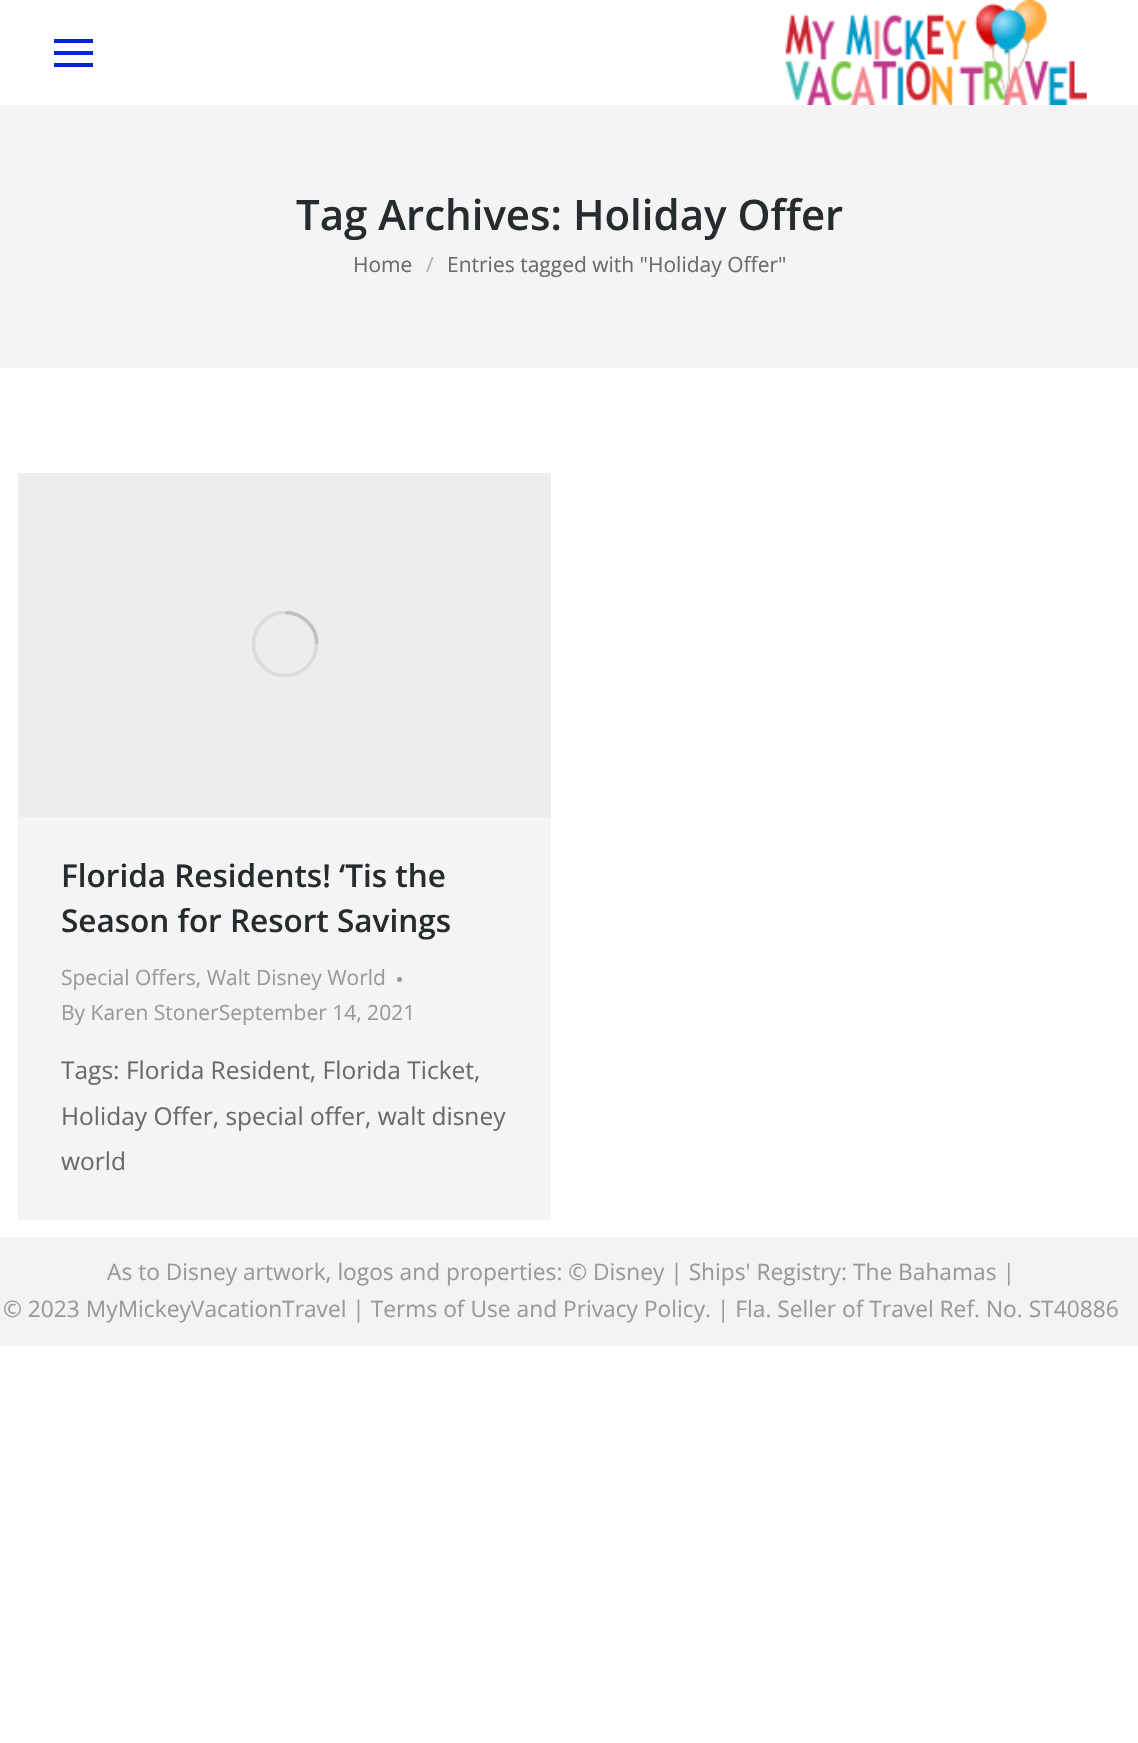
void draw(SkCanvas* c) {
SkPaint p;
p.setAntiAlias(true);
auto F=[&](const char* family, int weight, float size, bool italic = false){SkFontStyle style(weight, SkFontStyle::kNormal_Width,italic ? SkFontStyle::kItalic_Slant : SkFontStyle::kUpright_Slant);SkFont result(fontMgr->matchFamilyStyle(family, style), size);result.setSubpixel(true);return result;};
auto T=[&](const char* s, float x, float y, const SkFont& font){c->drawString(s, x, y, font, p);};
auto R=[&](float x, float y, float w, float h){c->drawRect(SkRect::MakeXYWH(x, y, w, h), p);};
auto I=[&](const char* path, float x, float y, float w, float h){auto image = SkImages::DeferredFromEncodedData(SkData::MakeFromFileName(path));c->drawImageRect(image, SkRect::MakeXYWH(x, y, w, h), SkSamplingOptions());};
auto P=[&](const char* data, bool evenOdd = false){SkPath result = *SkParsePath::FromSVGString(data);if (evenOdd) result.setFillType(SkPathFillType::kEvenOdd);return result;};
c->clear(0xffffffff);
p.setColor(0xff0027d6);
R(54,39,39,4);
R(54,51,39,4);
R(54,63,39,4);
I("1.png",785,0,302,105);
p.setColor(0xfff4f4f4);
R(0,105,1138,263);
auto f1 = F("Open Sans",600,42);
p.setColor(0xff262b2e);
T("Tag Archives: Holiday Offer",296,230,f1);
auto f2 = F("Open Sans",400,21);
p.setColor(0xff676b6d);
T("Home",353,272,f2);
p.setColor(0xffaeb0b1);
T("/",426,272,f2);
p.setColor(0xff676b6d);
T("Entries tagged with \"Holiday Offer\"",447,272,f2);
p.setColor(0xfff4f4f4);
R(18,817,533,403);
p.setColor(0xffededed);
R(18,473,533,344);
c->save();
c->clipRect(SkRect::MakeXYWH(252,611,67,66));
p.setStroke(true);
p.setStrokeWidth(3.5);
p.setColor(0xffdbdbdb);
c->drawCircle(285,644,31.5,p);
c->restore();
p.setColor(0x40676b6d);
c->drawPath(P("M317 644c0-17.5-14.5-31.5-32-31.5"),p);
auto f3 = F("Open Sans",600,31.5);
p.setStroke(false);
p.setColor(0xff262b2e);
T("Florida Residents! ‘Tis the",61,887,f3);
T("Season for Resort Savings",61,932,f3);
p.setColor(0xff999999);
T("Special Offers, Walt Disney World",61,985,f2);
c->drawCircle(399.5,979.5,2.5,p);
T("By Karen StonerSeptember 14, 2021",61,1020,f2);
auto f4 = F("Open Sans",400,24.5);
p.setColor(0xff676b6d);
T("Tags: Florida Resident, Florida Ticket,",61,1079,f4);
T("Holiday Offer, special offer, walt disney",61,1125,f4);
T("world",61,1170,f4);
p.setColor(0xfff2f3f3);
R(0,1237,1138,109);
auto f5 = F("Open Sans",400,22.75);
p.setColor(0xff999999);
T("As to Disney artwork, logos and properties: © Disney | Ships' Registry: The Bahamas |",107,1280,f5);
T("© 2023 MyMickeyVacationTravel | Terms of Use and Privacy Policy. | Fla. Seller of Travel Ref. No. ST40886",3,1317,f5);
}
